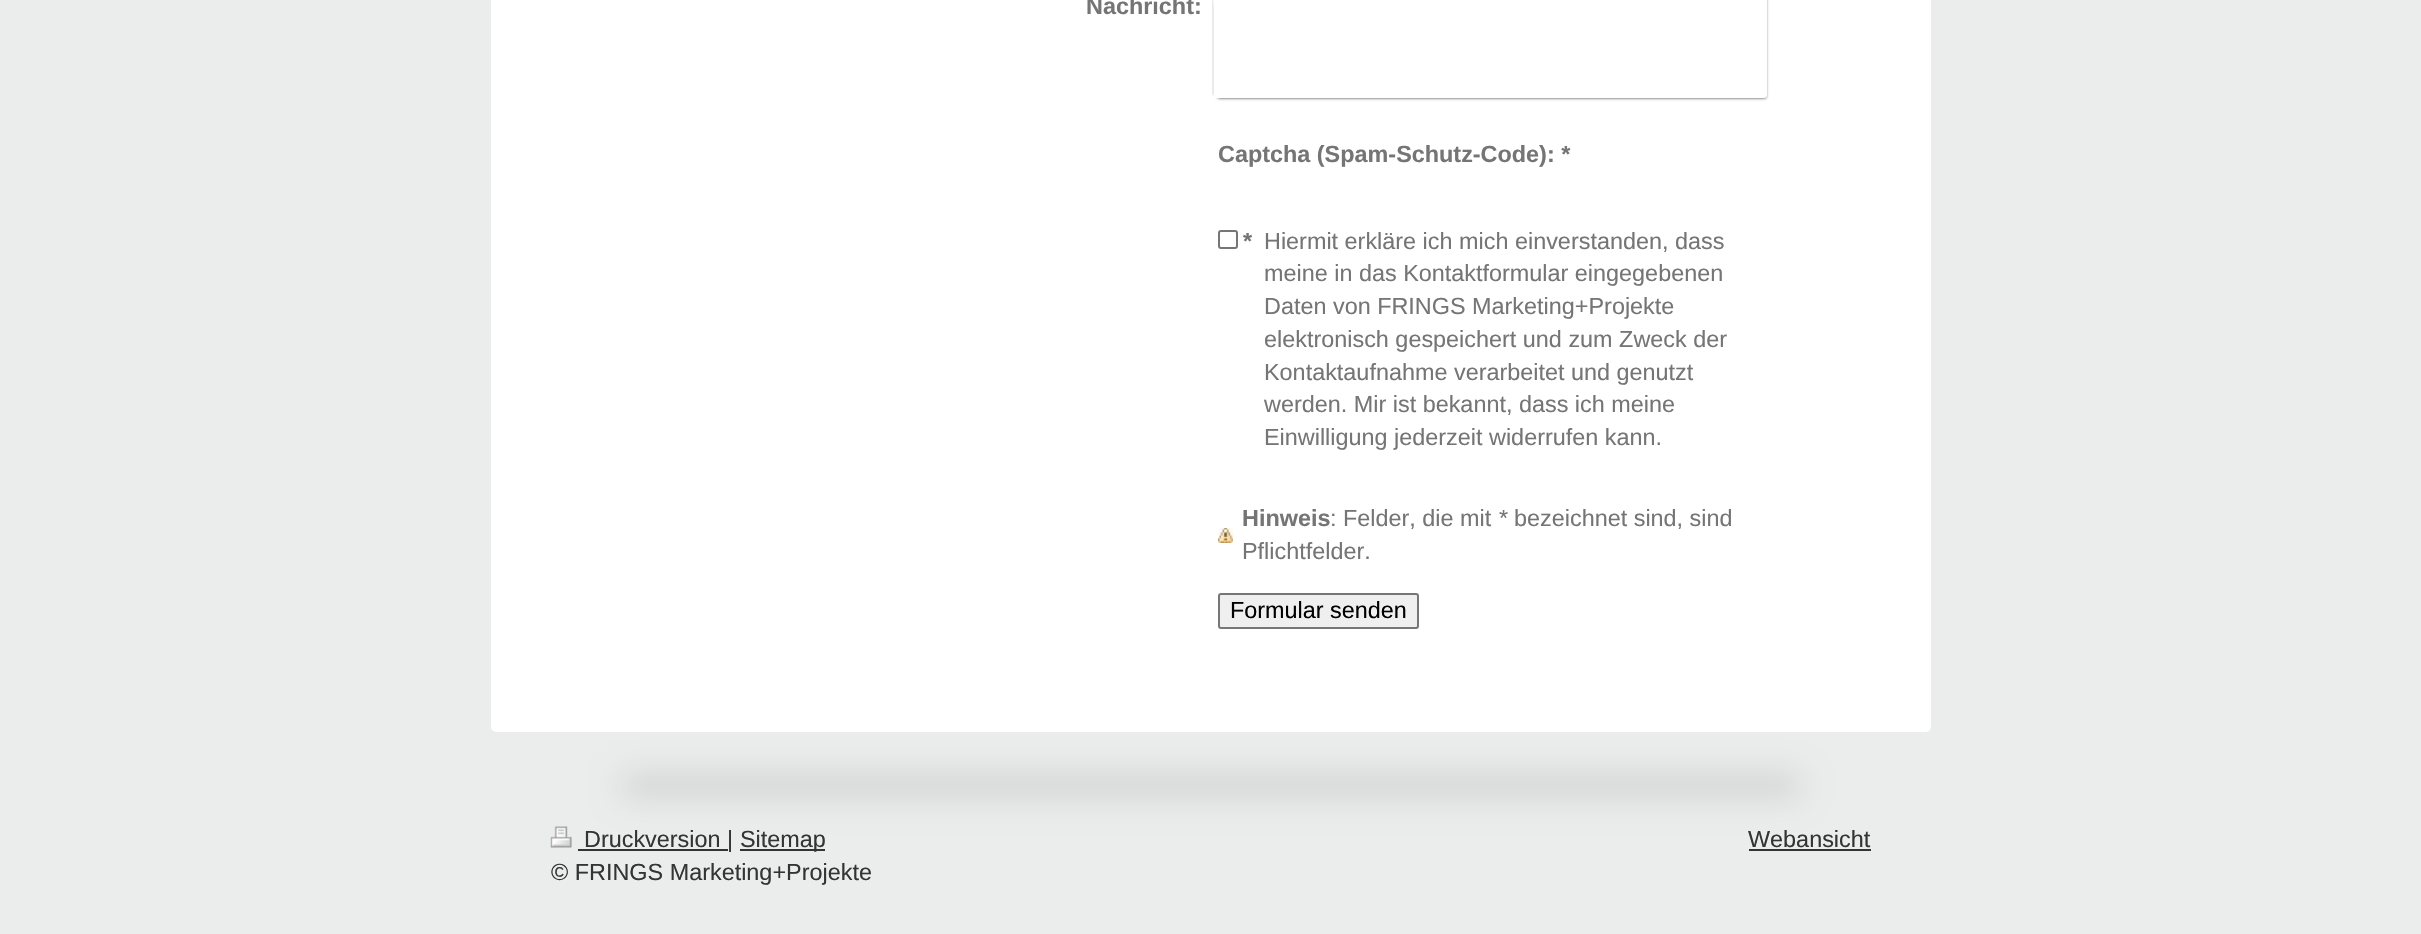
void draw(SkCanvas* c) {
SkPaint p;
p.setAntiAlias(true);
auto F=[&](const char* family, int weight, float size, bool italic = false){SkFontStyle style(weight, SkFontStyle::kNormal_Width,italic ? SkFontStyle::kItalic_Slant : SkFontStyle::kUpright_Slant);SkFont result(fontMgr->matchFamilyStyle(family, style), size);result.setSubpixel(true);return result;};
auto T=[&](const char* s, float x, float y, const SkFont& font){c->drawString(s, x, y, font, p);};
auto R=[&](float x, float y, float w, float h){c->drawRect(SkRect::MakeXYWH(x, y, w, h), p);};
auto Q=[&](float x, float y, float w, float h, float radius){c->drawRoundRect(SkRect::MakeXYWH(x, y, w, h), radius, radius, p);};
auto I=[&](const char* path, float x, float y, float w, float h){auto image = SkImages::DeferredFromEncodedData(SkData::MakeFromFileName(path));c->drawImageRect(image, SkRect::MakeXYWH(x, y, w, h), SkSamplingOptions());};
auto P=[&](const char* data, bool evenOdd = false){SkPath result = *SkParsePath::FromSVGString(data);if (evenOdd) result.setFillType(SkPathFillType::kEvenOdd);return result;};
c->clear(0xffebecec);
p.setColor(0xffffffff);
Q(491,-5,1440,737,5);
auto f1 = F("Liberation Sans",700,23.4);
p.setColor(0xff757575);
T("Nachricht:",1086,14,f1);
p.setColor(0xffebebeb);
c->drawPath(P("M1215-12h-1l-2 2v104l2 2v-86c0-7-3-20 2-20h548h2c0-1-2-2-3-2z"),p);
p.setColor(0xcc000000);
p.setMaskFilter(SkMaskFilter::MakeBlur(kNormal_SkBlurStyle, 1.5));
c->drawRect(SkRect::MakeXYWH(1218,-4,548,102),p);
p.setMaskFilter(nullptr);
p.setColor(0xffffffff);
Q(1214,-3,553,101,3);
p.setColor(0xff757575);
T("Captcha (Spam-Schutz-Code): *",1218,162,f1);
p.setStroke(true);
p.setStrokeWidth(2);
p.setColor(0xff767676);
c->drawRoundRect(SkRect::MakeXYWH(1219,231,18,17),2,2,p);
p.setStroke(false);
p.setColor(0xff757575);
T("*",1243,249,f1);
auto f2 = F("Liberation Sans",400,23.4);
T("Hiermit erkläre ich mich einverstanden, dass",1264,249,f2);
T("meine in das Kontaktformular eingegebenen",1264,281,f2);
T("Daten von FRINGS Marketing+Projekte",1264,314,f2);
T("elektronisch gespeichert und zum Zweck der",1264,347,f2);
T("Kontaktaufnahme verarbeitet und genutzt",1264,380,f2);
T("werden. Mir ist bekannt, dass ich meine",1264,412,f2);
T("Einwilligung jederzeit widerrufen kann.",1264,445,f2);
I("1.png",1218,528,15,15);
T("Hinweis",1242,526,f1);
T(": Felder, die mit",1330,526,f2);
auto f3 = F("Liberation Sans",400,23.4,true);
T("*",1498,526,f3);
T("bezeichnet sind, sind",1514,526,f2);
T("Pflichtfelder.",1242,559,f2);
p.setColor(0xffefefef);
c->drawRoundRect(SkRect::MakeXYWH(1219,594,199,34),2,2,p);
p.setStroke(true);
p.setColor(0xff767676);
c->drawRoundRect(SkRect::MakeXYWH(1219,594,199,34),2,2,p);
p.setStroke(false);
p.setColor(0xff000000);
T("Formular senden",1230,618,f2);
p.setColor(0x1a000000);
p.setMaskFilter(SkMaskFilter::MakeBlur(kNormal_SkBlurStyle, 15));
c->drawRoundRect(SkRect::MakeXYWH(620,773,1182,25),12.5,12.5,p);
p.setMaskFilter(nullptr);
I("2.png",550,826,22,22);
p.setColor(0xff333535);
R(578,849,150,2);
T("Druckversion |",584,847,f2);
R(740,849,85,2);
T("Sitemap",740,847,f2);
T("© FRINGS Marketing+Projekte",551,880,f2);
T("Webansicht",1748,847,f2);
R(1749,849,122,2);
}
